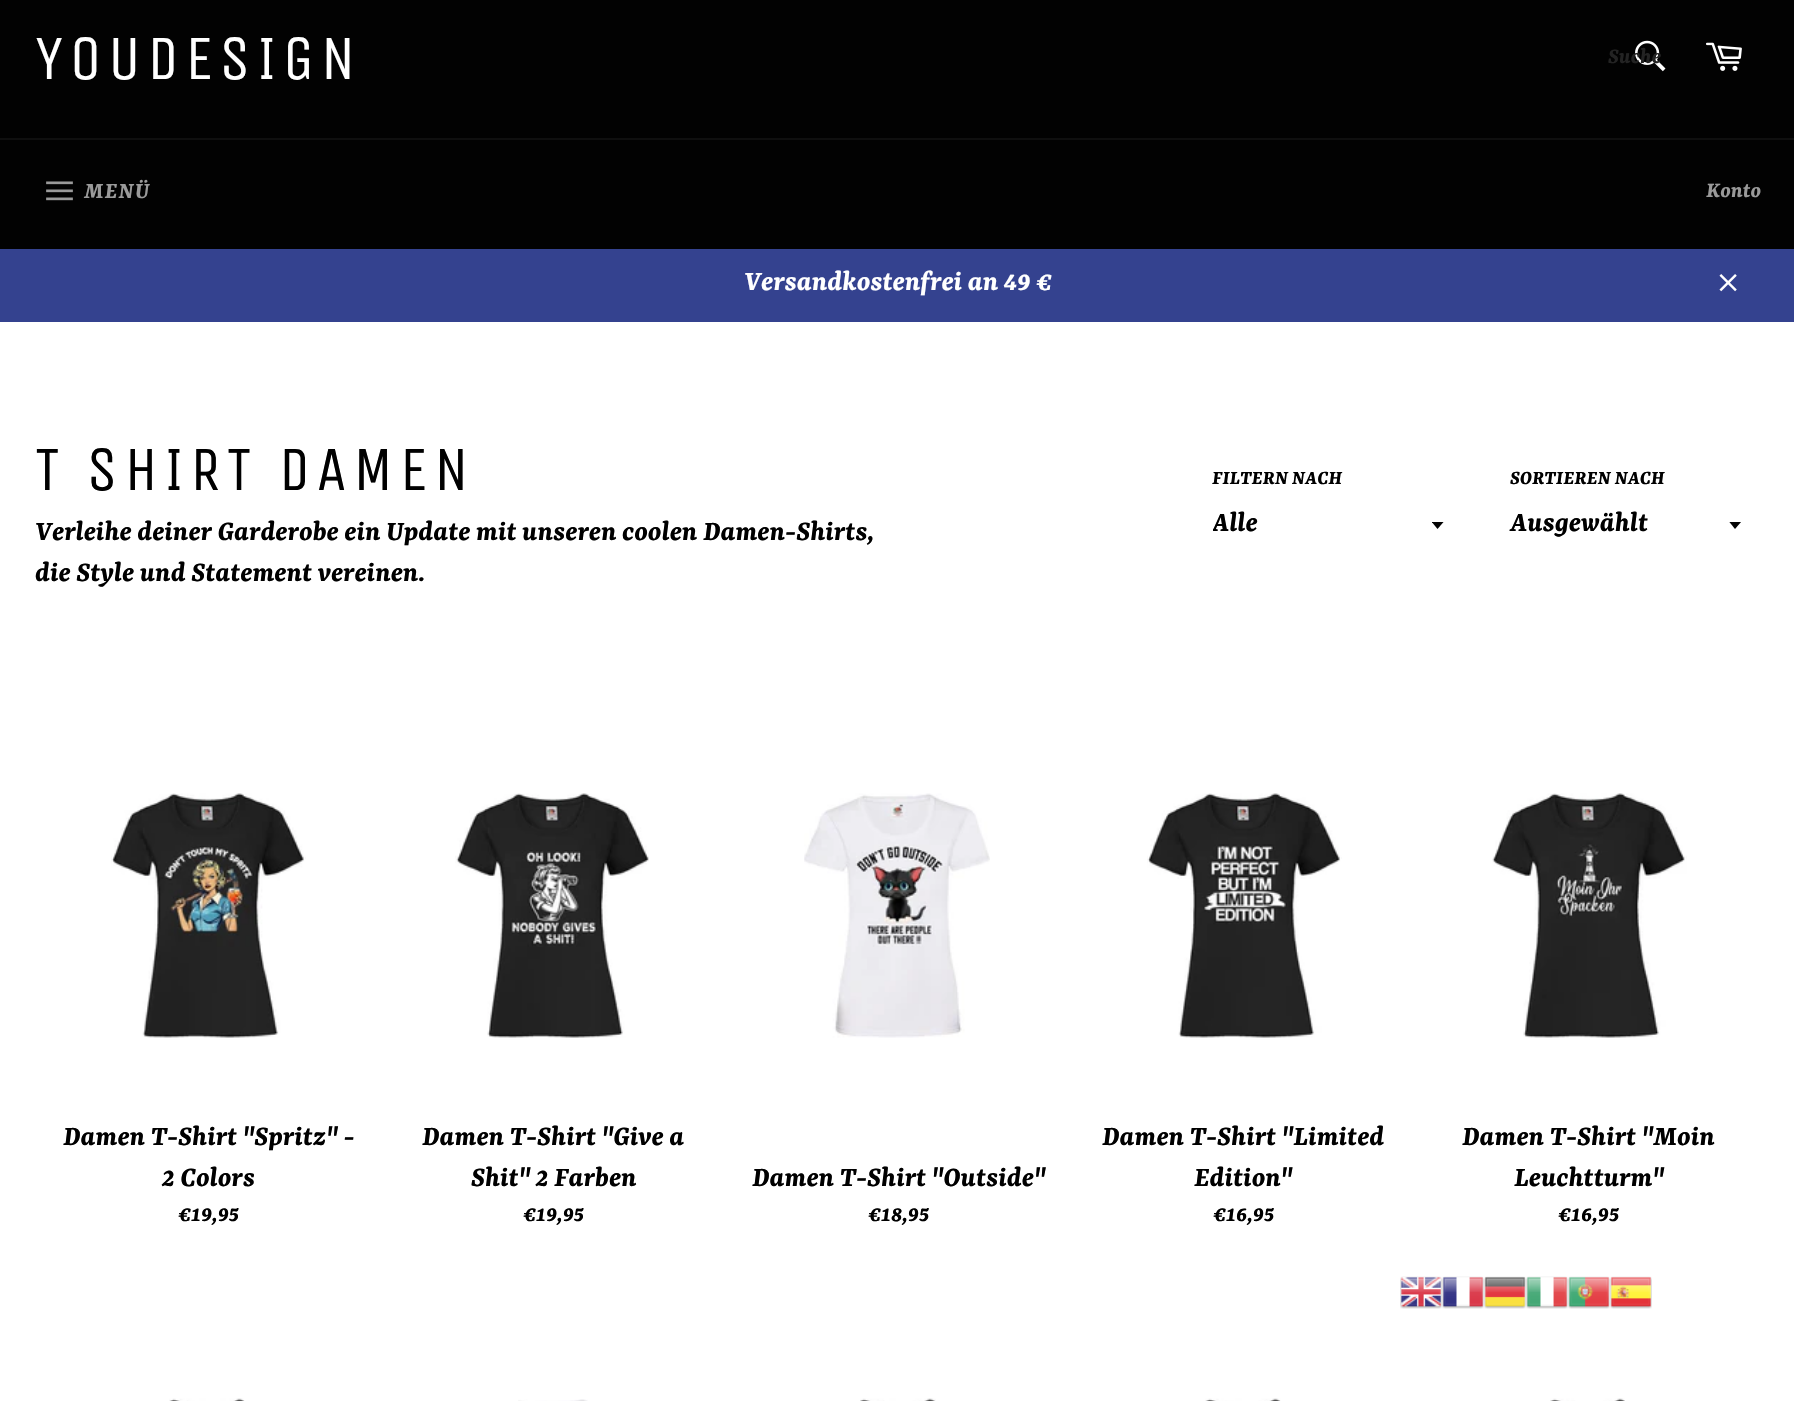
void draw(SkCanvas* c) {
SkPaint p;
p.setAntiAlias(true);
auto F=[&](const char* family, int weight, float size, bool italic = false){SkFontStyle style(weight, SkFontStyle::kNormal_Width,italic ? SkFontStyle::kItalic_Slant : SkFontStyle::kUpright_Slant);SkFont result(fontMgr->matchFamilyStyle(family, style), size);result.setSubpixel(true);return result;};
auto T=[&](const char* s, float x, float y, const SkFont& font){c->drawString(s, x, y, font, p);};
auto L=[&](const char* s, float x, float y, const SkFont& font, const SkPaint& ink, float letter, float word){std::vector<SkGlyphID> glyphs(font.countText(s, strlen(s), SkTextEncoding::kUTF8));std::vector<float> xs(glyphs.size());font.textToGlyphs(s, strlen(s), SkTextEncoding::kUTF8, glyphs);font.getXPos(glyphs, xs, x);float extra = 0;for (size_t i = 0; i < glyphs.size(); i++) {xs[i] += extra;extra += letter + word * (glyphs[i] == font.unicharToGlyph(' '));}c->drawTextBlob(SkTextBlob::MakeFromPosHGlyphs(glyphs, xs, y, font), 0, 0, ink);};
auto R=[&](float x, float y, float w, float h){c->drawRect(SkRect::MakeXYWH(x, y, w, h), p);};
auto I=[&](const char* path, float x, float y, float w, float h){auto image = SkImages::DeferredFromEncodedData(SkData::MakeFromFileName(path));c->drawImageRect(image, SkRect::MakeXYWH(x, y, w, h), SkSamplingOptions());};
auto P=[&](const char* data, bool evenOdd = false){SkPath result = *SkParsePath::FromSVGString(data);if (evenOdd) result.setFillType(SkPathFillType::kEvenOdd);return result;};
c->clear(0xffffffff);
p.setColor(0xff020202);
R(0,0,1794,138);
auto f1 = F("Unica One",400,63);
p.setColor(0xffffffff);
L("YOUDESIGN",35,79,f1,p,6.25,0);
I("1.png",1635,40,31,32);
auto f2 = F("Rasa",700,23,true);
p.setColor(0xff232323);
T("Suche",1608,63,f2);
I("2.png",1706,42,36,29);
p.setColor(0xff020202);
R(0,140,1794,109);
p.setColor(0xff0f0f0f);
R(0,138,1794,2);
I("3.png",46,181,27,20);
auto f3 = F("Rasa",700,24.5,true);
p.setColor(0xff9a9a9a);
L("MENÜ",84,198,f3,p,1,0);
T("Konto",1706,197,f2);
p.setColor(0xff34428f);
R(0,249,1794,73);
auto f4 = F("Rasa",700,29.75,true);
p.setColor(0xffffffff);
T("Versandkostenfrei an 49 €",744,290,f4);
I("4.png",1719,274,18,18);
p.setColor(0xff000000);
L("T SHIRT DAMEN",35,490,f1,p,6.25,0);
T("Verleihe deiner Garderobe ein Update mit unseren coolen Damen-Shirts,",35,540,f4);
T("die Style und Statement vereinen.",35,581,f4);
auto f5 = F("Rasa",700,21,true);
T("FILTERN NACH",1212,484,f5);
c->save();
c->clipRect(SkRect::MakeXYWH(1432,522,14,8));
p.setColor(0xff030303);
c->drawPath(P("M1431.5 521.5l6 7.5l6.5-7.5z"),p);
c->restore();
c->save();
c->clipRect(SkRect::MakeXYWH(1213,506,201,40));
p.setColor(0xff000000);
T("Alle",1212,531,f4);
c->restore();
T("SORTIEREN NACH",1510,484,f5);
c->save();
c->clipRect(SkRect::MakeXYWH(1729,522,14,8));
p.setColor(0xff030303);
c->drawPath(P("M1729 521.5l6 7.5l6.5-7.5z"),p);
c->restore();
p.setColor(0xff000000);
T("Ausgewählt",1510,531,f4);
I("5.png",111,793,195,245);
T("Damen T-Shirt \"Spritz\" -",63,1145,f4);
T("2 Colors",162,1186,f4);
T("€19,95",178,1221,f3);
I("6.png",455,793,194,245);
T("Damen T-Shirt \"Give a",422,1145,f4);
T("Shit\" 2 Farben",471,1186,f4);
T("€19,95",523,1221,f3);
I("7.png",804,793,186,245);
T("Damen T-Shirt \"Outside\"",752,1186,f4);
T("€18,95",868,1221,f3);
I("8.png",1147,793,195,245);
T("Damen T-Shirt \"Limited",1102,1145,f4);
T("Edition\"",1194,1186,f4);
T("€16,95",1213,1221,f3);
I("9.png",1492,793,195,245);
T("Damen T-Shirt \"Moin",1462,1145,f4);
T("Leuchtturm\"",1514,1186,f4);
T("€16,95",1558,1221,f3);
I("10.png",169,1398,76,3);
I("11.png",518,1399,70,2);
I("12.png",860,1398,76,3);
I("13.png",1205,1398,76,3);
I("14.png",1550,1398,75,3);
I("15.png",1400,1276,42,33);
I("16.png",1442,1276,42,33);
I("17.png",1484,1276,42,33);
I("18.png",1526,1276,42,33);
I("19.png",1568,1276,42,33);
I("20.png",1610,1276,42,33);
}
